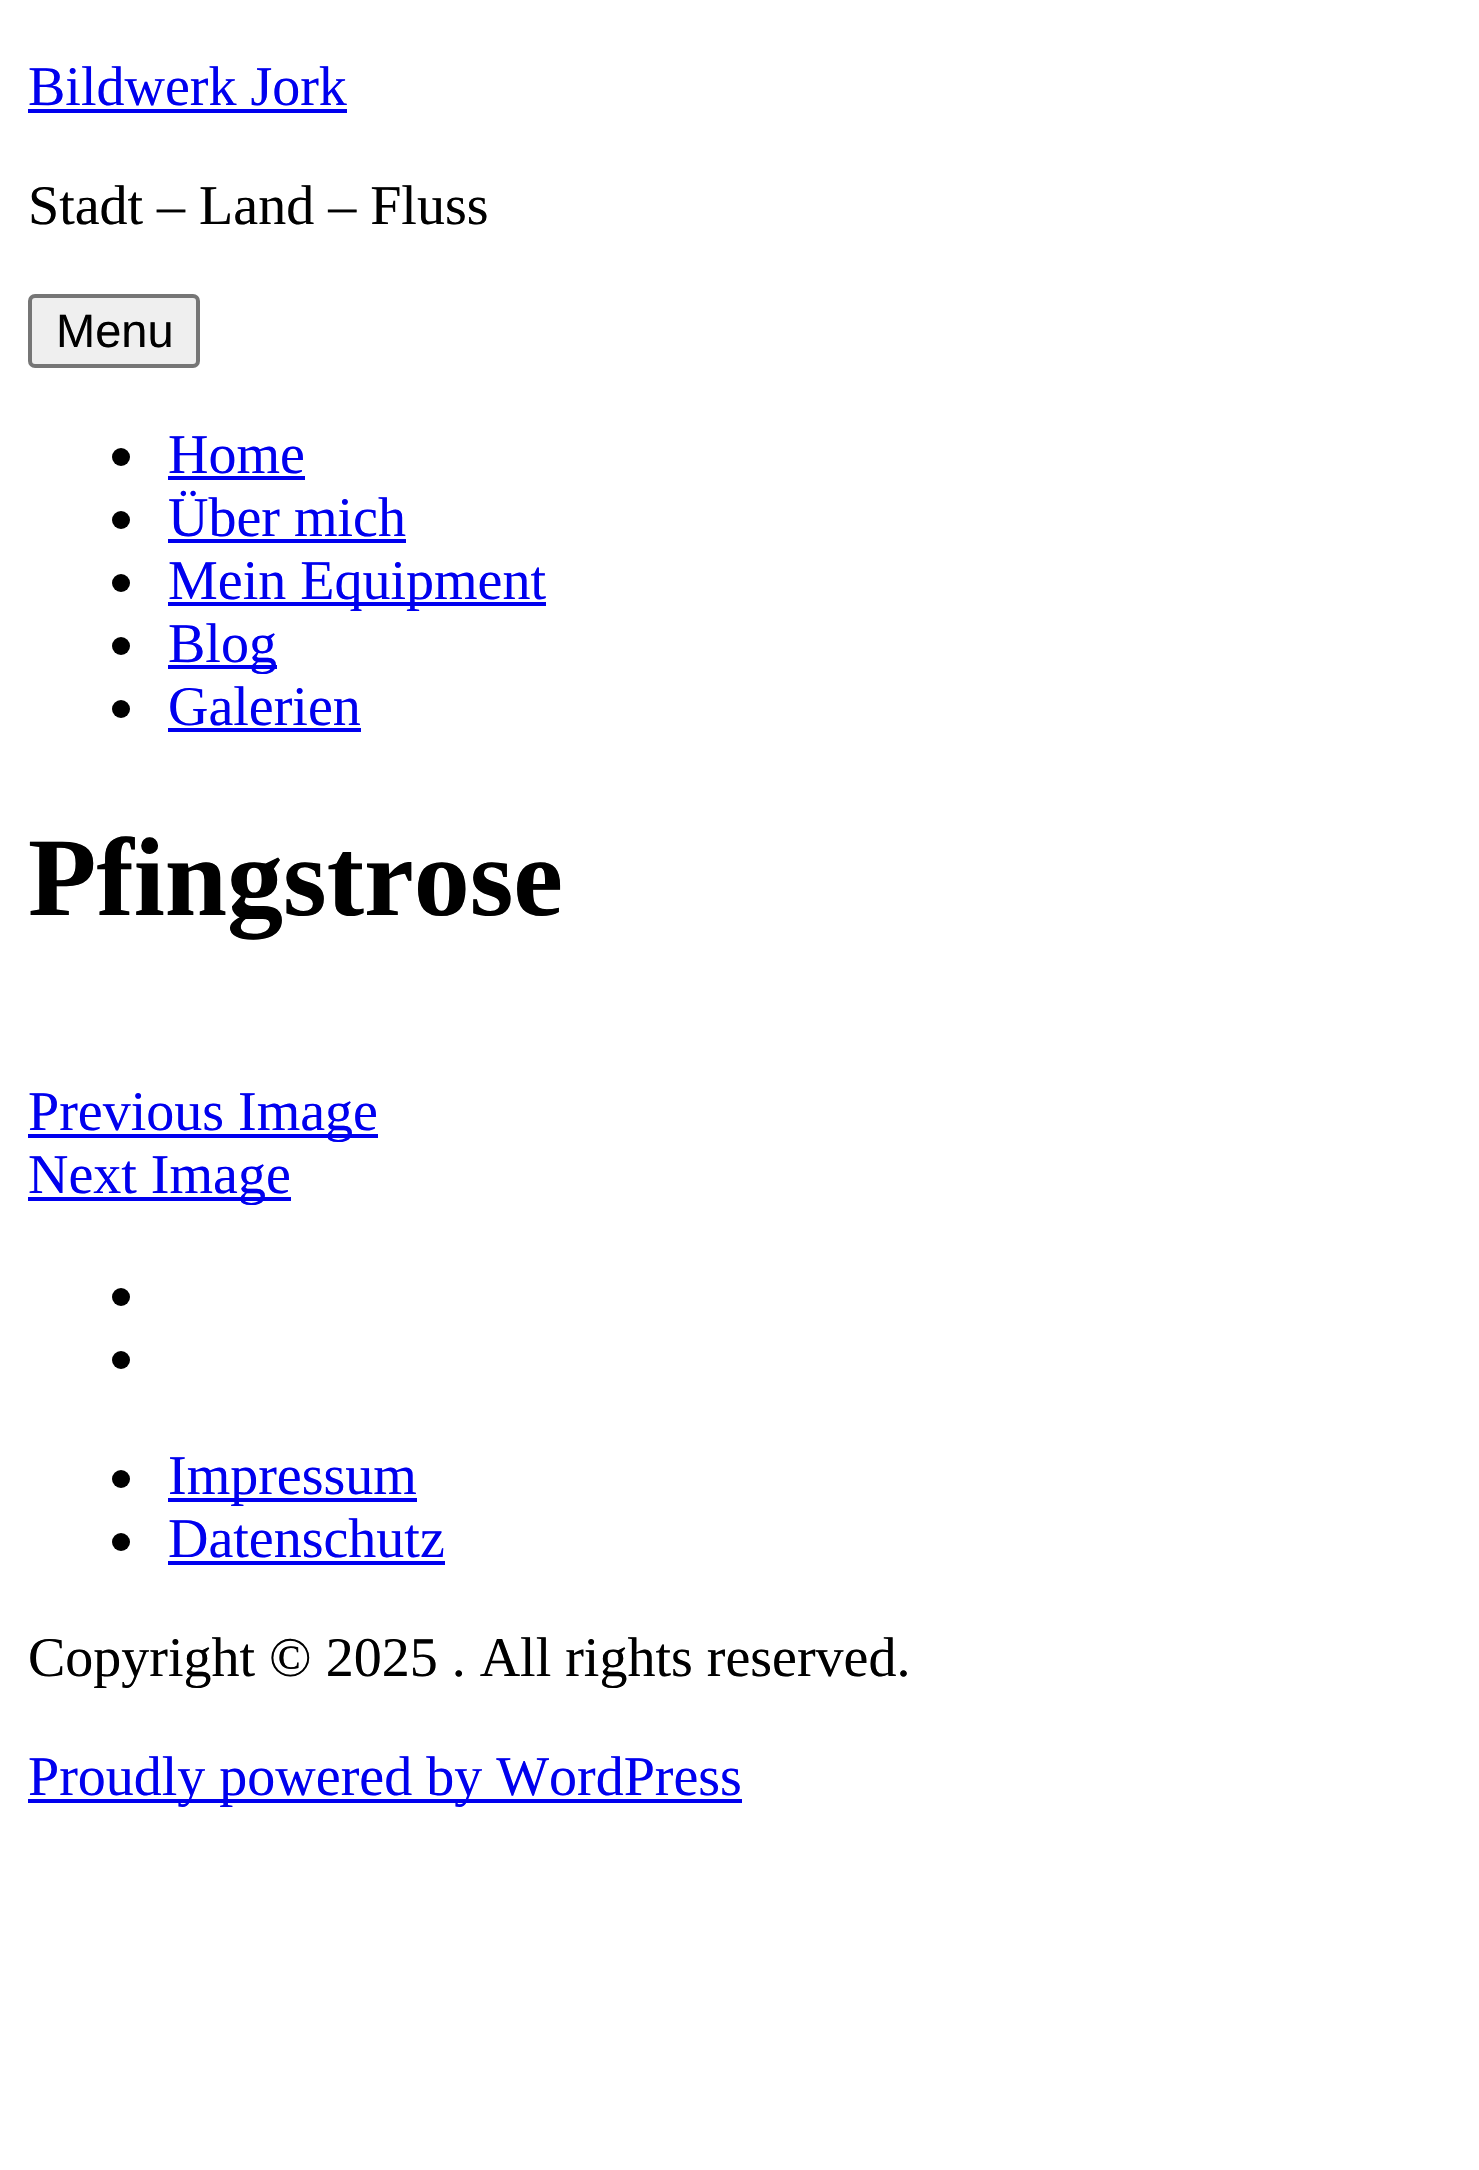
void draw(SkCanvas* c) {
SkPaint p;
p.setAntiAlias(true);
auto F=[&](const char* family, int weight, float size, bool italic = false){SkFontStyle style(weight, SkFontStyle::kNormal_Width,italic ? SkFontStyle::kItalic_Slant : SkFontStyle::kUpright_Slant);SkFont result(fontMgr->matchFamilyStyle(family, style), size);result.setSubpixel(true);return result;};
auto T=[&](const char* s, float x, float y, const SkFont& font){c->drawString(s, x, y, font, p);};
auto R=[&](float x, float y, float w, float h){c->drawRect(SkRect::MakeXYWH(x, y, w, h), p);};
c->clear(0xffffffff);
auto f1 = F("Liberation Serif",400,56);
p.setColor(0xff0000ee);
T("Bildwerk Jork",28,105,f1);
R(28,109,319,4);
p.setColor(0xff000000);
T("Stadt – Land – Fluss",28,224,f1);
p.setColor(0xffefefef);
c->drawRoundRect(SkRect::MakeXYWH(30,296,168,70),5,5,p);
p.setStroke(true);
p.setStrokeWidth(4);
p.setColor(0xff767676);
c->drawRoundRect(SkRect::MakeXYWH(30,296,168,70),5,5,p);
auto f2 = F("Liberation Sans",400,47);
p.setStroke(false);
p.setColor(0xff000000);
T("Menu",56,347,f2);
c->drawCircle(121,457,9,p);
p.setColor(0xff0000ee);
T("Home",168,473,f1);
R(168,476,137,4);
p.setColor(0xff000000);
c->drawCircle(121,520,9,p);
p.setColor(0xff0000ee);
T("Über mich",168,536,f1);
R(168,539,238,4);
p.setColor(0xff000000);
c->drawCircle(121,583,9,p);
p.setColor(0xff0000ee);
R(168,602,378,4);
T("Mein Equipment",168,599,f1);
p.setColor(0xff000000);
c->drawCircle(121,646,9,p);
p.setColor(0xff0000ee);
R(168,665,109,4);
T("Blog",168,662,f1);
p.setColor(0xff000000);
c->drawCircle(121,709,9,p);
p.setColor(0xff0000ee);
T("Galerien",168,725,f1);
R(168,728,193,4);
auto f3 = F("Liberation Serif",700,112);
p.setColor(0xff000000);
T("Pfingstrose",28,915,f3);
p.setColor(0xff0000ee);
R(28,1134,350,4);
T("Previous Image",28,1130,f1);
R(28,1197,263,4);
T("Next Image",28,1193,f1);
p.setColor(0xff000000);
c->drawCircle(121,1297,9,p);
c->drawCircle(121,1360,9,p);
c->drawCircle(121,1479,9,p);
p.setColor(0xff0000ee);
R(168,1498,249,4);
T("Impressum",168,1494,f1);
p.setColor(0xff000000);
c->drawCircle(121,1542,9,p);
p.setColor(0xff0000ee);
T("Datenschutz",168,1557,f1);
R(168,1561,277,4);
p.setColor(0xff000000);
T("Copyright © 2025 . All rights reserved.",28,1676,f1);
p.setColor(0xff0000ee);
R(28,1799,714,4);
T("Proudly powered by WordPress",28,1795,f1);
}
